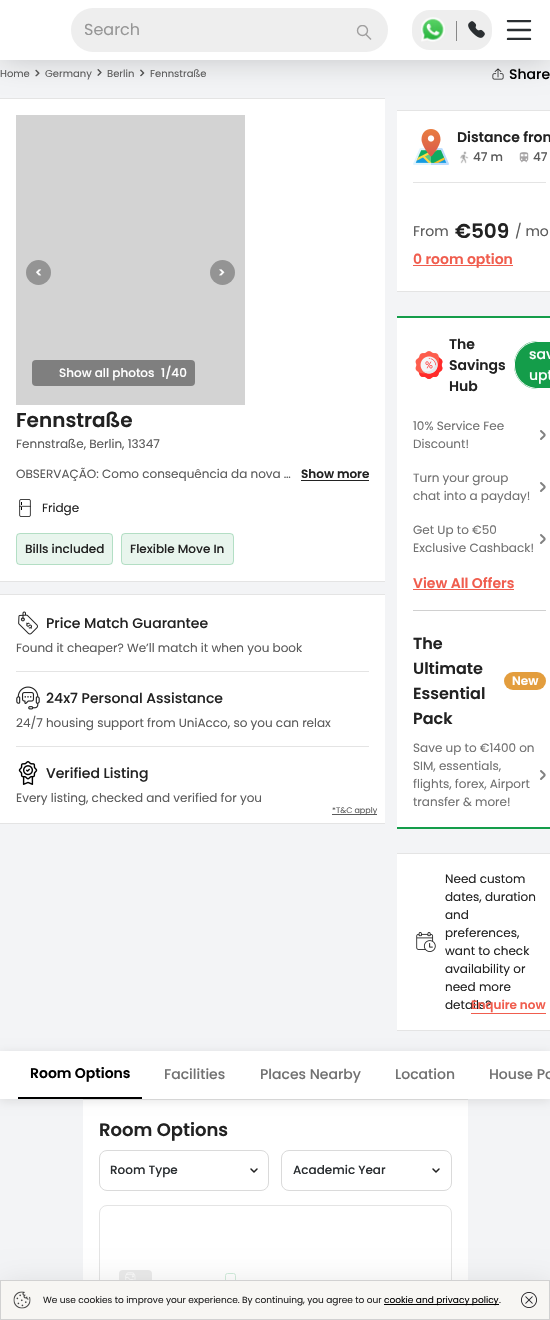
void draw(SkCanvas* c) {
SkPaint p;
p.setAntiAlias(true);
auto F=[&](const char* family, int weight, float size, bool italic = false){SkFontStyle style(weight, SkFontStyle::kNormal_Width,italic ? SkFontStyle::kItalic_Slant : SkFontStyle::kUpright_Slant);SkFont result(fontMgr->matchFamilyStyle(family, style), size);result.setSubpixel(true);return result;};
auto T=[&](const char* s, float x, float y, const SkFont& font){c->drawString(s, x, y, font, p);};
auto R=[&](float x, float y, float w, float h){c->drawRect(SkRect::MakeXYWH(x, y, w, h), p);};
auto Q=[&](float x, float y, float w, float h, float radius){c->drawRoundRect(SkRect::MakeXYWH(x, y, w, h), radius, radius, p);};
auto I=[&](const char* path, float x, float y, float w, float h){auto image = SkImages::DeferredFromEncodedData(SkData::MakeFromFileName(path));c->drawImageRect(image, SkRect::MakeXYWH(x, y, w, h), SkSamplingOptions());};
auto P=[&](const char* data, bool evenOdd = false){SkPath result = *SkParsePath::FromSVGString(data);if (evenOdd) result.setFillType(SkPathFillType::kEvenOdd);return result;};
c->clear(0xfff3f4f6);
I("3.png",35,69,5,8);
I("4.png",97,69,5,7);
I("5.png",140,69,5,8);
I("6.png",492,68,12,12);
p.setColor(0xffffffff);
R(0,99,385,482);
p.setColor(0xffe4e4e4);
R(0,98,385,1);
p.setColor(0x33000000);
p.setMaskFilter(SkMaskFilter::MakeBlur(kNormal_SkBlurStyle, 15));
c->drawRect(SkRect::MakeXYWH(0,0,550,60),p);
p.setMaskFilter(nullptr);
p.setColor(0xffffffff);
R(0,0,550,60);
p.setColor(0xffeeeeee);
Q(71,8,317,44,22);
auto f1 = F("Poppins",400,16);
p.setColor(0xff969696);
T("Search",84,35,f1);
c->save();
c->clipRect(SkRect::MakeXYWH(356,25,16,16));
p.setStroke(true);
p.setStrokeWidth(1.4);
p.setColor(0xffa09f9f);
c->drawCircle(362.5,30.5,5,p);
c->restore();
c->drawPath(P("M365.5 34l5.5 5.5"),p);
p.setStroke(false);
p.setColor(0xffeeeeee);
Q(412,10,80,40,18);
I("1.png",421,17,24,25);
p.setColor(0xff888888);
R(456,21,1,20);
I("2.png",468,21,17,17);
c->save();
c->clipRect(SkRect::MakeXYWH(505,20,28,20));
p.setStroke(true);
p.setStrokeWidth(2.4);
p.setStrokeCap(SkPaint::kRound_Cap);
p.setColor(0xff2a2e31);
c->drawPath(P("M508 21h22"),p);
c->restore();
c->drawPath(P("M508 30h22"),p);
c->save();
c->clipRect(SkRect::MakeXYWH(505,20,28,20));
c->drawPath(P("M508 39h22"),p);
c->restore();
auto f2 = F("Poppins",400,10);
p.setStroke(false);
p.setColor(0xff5b5b5b);
T("Home",0,77,f2);
T("Germany",45,77,f2);
T("Berlin",107,77,f2);
T("Fennstraße",150,77,f2);
auto f3 = F("Poppins",500,14);
p.setColor(0xff000000);
T("Share",509,79,f3);
p.setColor(0xffe4e4e4);
R(0,581,385,1);
p.setColor(0xffd3d3d3);
R(16,115,229,290);
p.setColor(0xff949494);
c->drawCircle(38.5,272.5,12.5,p);
auto f4 = F("Poppins",600,13);
p.setColor(0xffffffff);
T("<",35,277,f4);
p.setColor(0xff949494);
c->drawCircle(222.5,272.5,12.5,p);
p.setColor(0xffffffff);
T(">",218,277,f4);
p.setColor(0xff7f7f7f);
Q(32,360,163,26,4);
auto f5 = F("Poppins",500,12);
p.setColor(0xffffffff);
T("Show all photos",59,377,f5);
T("1/40",161,377,f5);
auto f6 = F("Poppins",600,20);
p.setColor(0xff222222);
T("Fennstraße",16,427,f6);
auto f7 = F("Poppins",400,12);
p.setColor(0xff5b5b5b);
T("Fennstraße, Berlin, 13347",16,448,f7);
T("OBSERVAÇÃO: Como consequência da nova …",16,478,f7);
auto f8 = F("Poppins",600,12);
p.setColor(0xff222222);
T("Show more",301,478,f8);
R(301,480,68,1);
I("7.png",19,499,12,18);
T("Fridge",42,512,f7);
p.setColor(0xffe8f5ed);
Q(16,533,97,32,4);
p.setStroke(true);
p.setStrokeWidth(1);
p.setStrokeCap(SkPaint::kButt_Cap);
p.setColor(0x40149d4a);
c->drawRoundRect(SkRect::MakeXYWH(16.5,533.5,96,31),3.5,3.5,p);
p.setStroke(false);
p.setColor(0xff222222);
T("Bills included",25,553,f5);
p.setColor(0xffe8f5ed);
Q(121,533,113,32,4);
p.setStroke(true);
p.setColor(0x40149d4a);
c->drawRoundRect(SkRect::MakeXYWH(121.5,533.5,112,31),3.5,3.5,p);
p.setStroke(false);
p.setColor(0xff222222);
T("Flexible Move In",130,553,f5);
p.setColor(0xffffffff);
R(0,595,385,228);
p.setColor(0xffe4e4e4);
R(0,594,385,1);
R(0,823,385,1);
I("8.png",18,611,20,24);
p.setColor(0xff222222);
T("Price Match Guarantee",46,628,f3);
p.setColor(0xff5b5b5b);
T("Found it cheaper? We’ll match it when you book",16,652,f7);
R(332,814,45,1);
auto f9 = F("Poppins",400,8);
T("*T&C apply",332,813,f9);
p.setColor(0xffe4e4e4);
R(16,671,353,1);
I("9.png",16,686,24,24);
p.setColor(0xff222222);
T("24x7 Personal Assistance",46,703,f3);
p.setColor(0xff5b5b5b);
T("24/7 housing support from UniAcco, so you can relax",16,727,f7);
p.setColor(0xffe4e4e4);
R(16,746,353,1);
I("10.png",18,761,20,24);
p.setColor(0xff222222);
T("Verified Listing",46,778,f3);
p.setColor(0xff5b5b5b);
T("Every listing, checked and verified for you",16,802,f7);
p.setColor(0xffffffff);
R(397,111,153,180);
p.setColor(0xffe4e4e4);
R(397,110,153,1);
R(397,291,153,1);
I("11.png",413,129,36,36);
auto f10 = F("Poppins",600,14);
p.setColor(0xff222222);
T("Distance from",457,142,f10);
I("12.png",460,151,9,13);
p.setColor(0xff5b5b5b);
T("47 m",473,161,f5);
I("13.png",519,152,10,11);
T("47",533,161,f5);
p.setColor(0xffe4e4e4);
R(413,182,133,1);
auto f11 = F("Poppins",400,14);
p.setColor(0xff5b5b5b);
T("From",413,236,f11);
p.setColor(0xff222222);
T("€509",455,238,f6);
p.setColor(0xff5b5b5b);
T("/ mo",515,236,f11);
p.setColor(0xfff05d4e);
R(413,265,100,1);
T("0 room option",413,264,f10);
p.setColor(0xffffffff);
R(397,318,153,509);
p.setColor(0xff149d4a);
R(397,316,153,2);
R(397,827,153,2);
I("14.png",415,351,28,28);
p.setColor(0xff222222);
T("The",449,349,f10);
T("Savings",449,370,f10);
T("Hub",449,391,f10);
p.setColor(0xff149d4a);
c->drawPath(P("M538 341h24v48h-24c-13.5 0-24-10.5-24-24c0-13.5 10.5-24 24-24z"),p);
p.setColor(0xffffffff);
c->drawPath(P("M538 341h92v48h-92c-13 0-24-11-24-24c0-13 11-24 24-24zm0 1h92v46h-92c-13 0-23-10-23-23c0-13 10-23 23-23z",true),p);
T("sav",529,359,f3);
T("upt",529,380,f3);
p.setColor(0xff717171);
T("10% Service Fee",413,430,f7);
T("Discount!",413,448,f7);
p.setStroke(true);
p.setStrokeWidth(2);
p.setStrokeCap(SkPaint::kRound_Cap);
p.setColor(0xff818181);
c->drawPath(P("M541 439c5-5 5-3 0-8m0 60c5-5 5-3 0-8"),p);
p.setStroke(false);
p.setColor(0xff717171);
T("Turn your group",413,482,f7);
T("chat into a payday!",413,500,f7);
T("Get Up to €50",413,534,f7);
T("Exclusive Cashback!",413,552,f7);
p.setStroke(true);
p.setColor(0xff818181);
c->drawPath(P("M541 543c5-5 5-3 0-8"),p);
p.setStroke(false);
p.setColor(0xfff05d4e);
T("View All Offers",413,588,f10);
R(413,589,101,1);
p.setColor(0xffd0d0d0);
R(413,610,133,1);
auto f12 = F("Poppins",600,16);
p.setColor(0xff222222);
T("The",413,649,f12);
T("Ultimate",413,674,f12);
T("Essential",413,699,f12);
T("Pack",413,724,f12);
p.setColor(0xffe39d3d);
Q(504,672,42,18,9);
p.setColor(0xffffffff);
T("New",512,685,f8);
p.setColor(0xff717171);
T("Save up to €1400 on",413,752,f7);
T("SIM, essentials,",413,770,f7);
T("flights, forex, Airport",413,788,f7);
T("transfer & more!",413,806,f7);
p.setStroke(true);
p.setColor(0xff818181);
c->drawPath(P("M541 779c5-5 5-3 0-8"),p);
p.setStroke(false);
p.setColor(0xffffffff);
R(397,854,153,176);
p.setColor(0xffe4e4e4);
R(397,853,153,1);
R(397,1030,153,1);
I("15.png",416,932,20,20);
p.setColor(0xff222222);
T("Need custom",445,883,f7);
T("dates, duration",445,901,f7);
T("and",445,919,f7);
T("preferences,",445,937,f7);
T("want to check",445,955,f7);
T("availability or",445,973,f7);
T("need more",445,991,f7);
T("details?",445,1009,f7);
p.setColor(0xfff05d4e);
T("Enquire now",471,1009,f8);
R(471,1013,75,1);
p.setColor(0xffffffff);
R(83,1100,385,180);
p.setColor(0xffe4e4e4);
R(83,1099,385,1);
p.setColor(0x1a000000);
p.setMaskFilter(SkMaskFilter::MakeBlur(kNormal_SkBlurStyle, 5));
c->drawRect(SkRect::MakeXYWH(0,1053,550,48),p);
p.setMaskFilter(nullptr);
p.setColor(0xffffffff);
R(0,1051,550,48);
p.setColor(0xff000000);
R(18,1097,124,2);
T("Room Options",30,1078,f10);
p.setColor(0xff717171);
T("Facilities",164,1079,f3);
T("Places Nearby",260,1079,f3);
T("Location",395,1079,f3);
T("House Po",489,1079,f3);
auto f13 = F("Poppins",600,18);
p.setColor(0xff222222);
T("Room Options",99,1136,f13);
p.setStroke(true);
p.setStrokeWidth(1);
p.setStrokeCap(SkPaint::kButt_Cap);
p.setColor(0xffdadada);
c->drawRoundRect(SkRect::MakeXYWH(99.5,1150.5,169,40),7.5,7.5,p);
p.setStroke(false);
p.setColor(0xff2a2e31);
T("Room Type",110,1174,f5);
p.setStroke(true);
p.setStrokeWidth(1.5);
p.setStrokeCap(SkPaint::kRound_Cap);
p.setStrokeJoin(SkPaint::kRound_Join);
p.setColor(0xff222222);
c->drawPath(P("M257 1169l-3 3l-3-3"),p);
p.setStrokeWidth(1);
p.setStrokeCap(SkPaint::kButt_Cap);
p.setStrokeJoin(SkPaint::kMiter_Join);
p.setColor(0xffdadada);
c->drawRoundRect(SkRect::MakeXYWH(281.5,1150.5,170,40),7.5,7.5,p);
p.setStroke(false);
p.setColor(0xff2a2e31);
T("Academic Year",293,1174,f5);
p.setStroke(true);
p.setStrokeWidth(1.5);
p.setStrokeCap(SkPaint::kRound_Cap);
p.setStrokeJoin(SkPaint::kRound_Join);
p.setColor(0xff222222);
c->drawPath(P("M439 1169l-3 3l-3-3"),p);
p.setStrokeWidth(1);
p.setStrokeCap(SkPaint::kButt_Cap);
p.setStrokeJoin(SkPaint::kMiter_Join);
p.setColor(0xffe4e4e4);
c->drawRoundRect(SkRect::MakeXYWH(99.5,1205.5,352,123),7.5,7.5,p);
p.setStroke(false);
p.setColor(0xff999999);
Q(119,1270,33,15,4);
I("16.png",125,1272,11,8);
p.setStroke(true);
p.setColor(0xff149d4a);
c->drawRoundRect(SkRect::MakeXYWH(225.5,1273.5,10,11),2,2,p);
p.setStroke(false);
p.setColor(0xccffffff);
Q(100,1206,351,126,12);
p.setColor(0x1a000000);
p.setMaskFilter(SkMaskFilter::MakeBlur(kNormal_SkBlurStyle, 15));
c->drawRect(SkRect::MakeXYWH(2,1284,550,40),p);
p.setMaskFilter(nullptr);
p.setColor(0xfff7f6f3);
c->drawRect(SkRect::MakeXYWH(.5,1280.5,549,39),p);
p.setStroke(true);
p.setColor(0xffd1d1d1);
c->drawRect(SkRect::MakeXYWH(.5,1280.5,549,39),p);
I("17.png",13,1291,18,18);
auto f14 = F("Poppins",400,9);
p.setStroke(false);
p.setColor(0xff222222);
T("We use cookies to improve your experience. By continuing, you agree to our",43,1303,f14);
p.setColor(0xff000000);
R(384,1304,115,1);
T("cookie and privacy policy",384,1303,f14);
p.setColor(0xff222222);
T(".",499,1303,f14);
I("18.png",521,1292,16,16);
}
